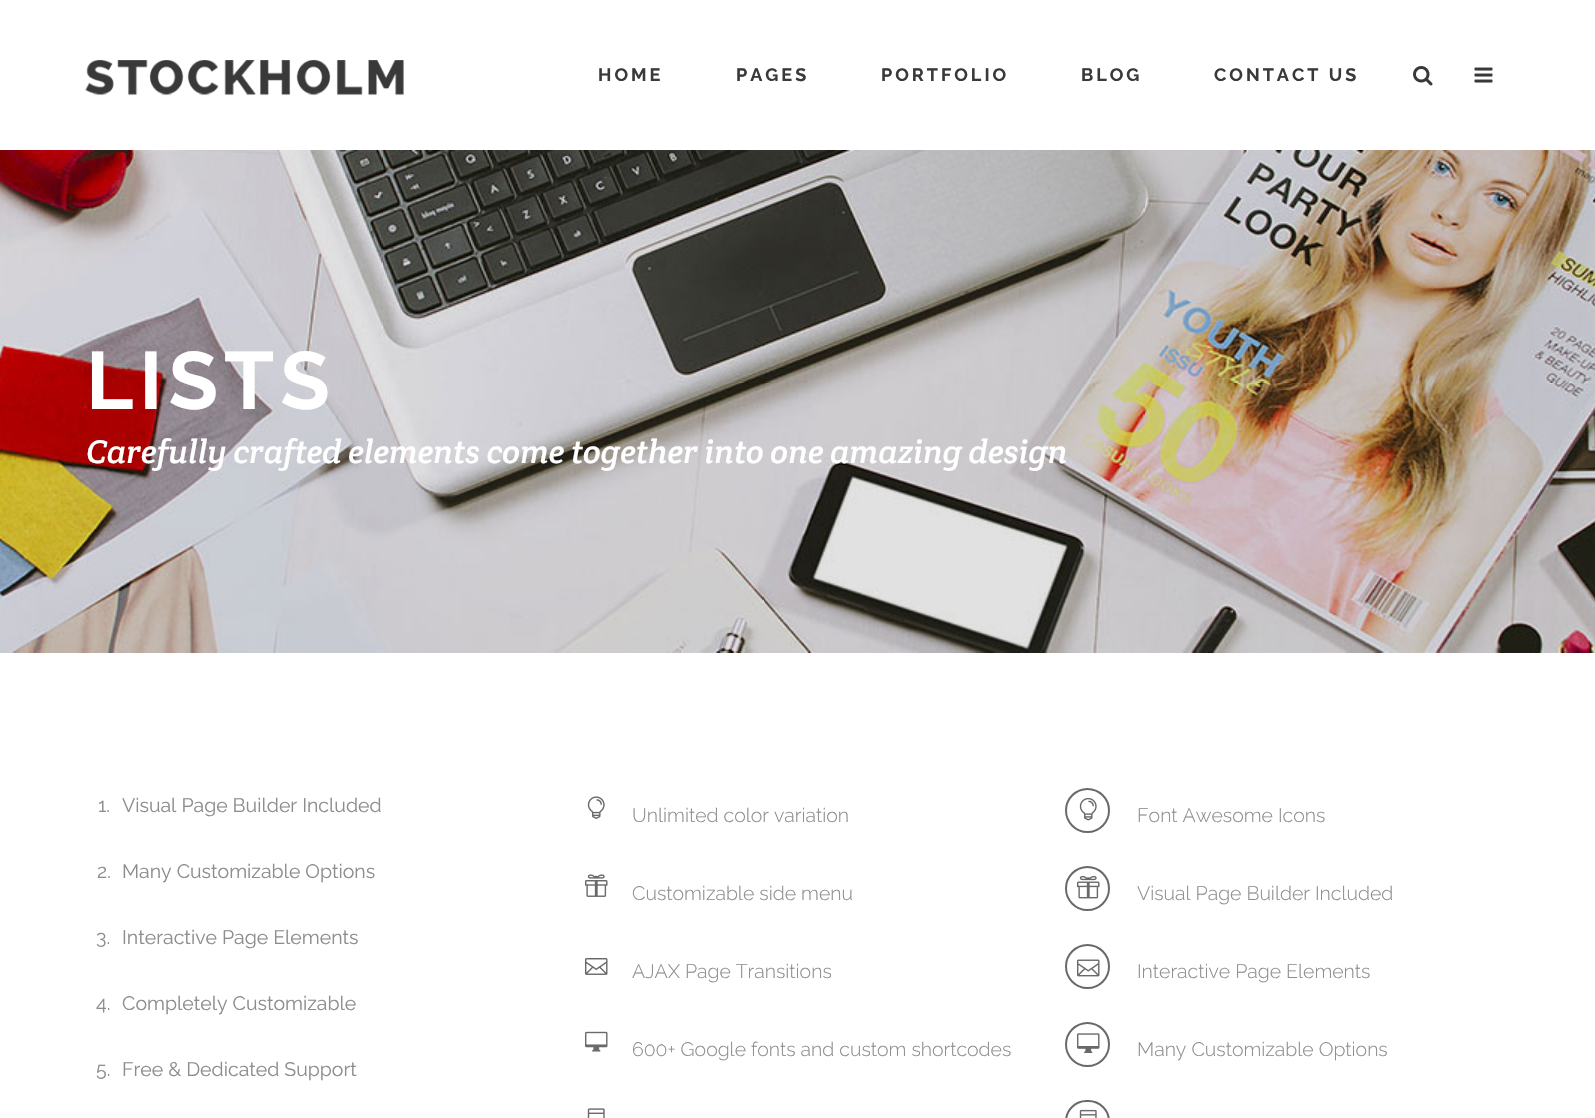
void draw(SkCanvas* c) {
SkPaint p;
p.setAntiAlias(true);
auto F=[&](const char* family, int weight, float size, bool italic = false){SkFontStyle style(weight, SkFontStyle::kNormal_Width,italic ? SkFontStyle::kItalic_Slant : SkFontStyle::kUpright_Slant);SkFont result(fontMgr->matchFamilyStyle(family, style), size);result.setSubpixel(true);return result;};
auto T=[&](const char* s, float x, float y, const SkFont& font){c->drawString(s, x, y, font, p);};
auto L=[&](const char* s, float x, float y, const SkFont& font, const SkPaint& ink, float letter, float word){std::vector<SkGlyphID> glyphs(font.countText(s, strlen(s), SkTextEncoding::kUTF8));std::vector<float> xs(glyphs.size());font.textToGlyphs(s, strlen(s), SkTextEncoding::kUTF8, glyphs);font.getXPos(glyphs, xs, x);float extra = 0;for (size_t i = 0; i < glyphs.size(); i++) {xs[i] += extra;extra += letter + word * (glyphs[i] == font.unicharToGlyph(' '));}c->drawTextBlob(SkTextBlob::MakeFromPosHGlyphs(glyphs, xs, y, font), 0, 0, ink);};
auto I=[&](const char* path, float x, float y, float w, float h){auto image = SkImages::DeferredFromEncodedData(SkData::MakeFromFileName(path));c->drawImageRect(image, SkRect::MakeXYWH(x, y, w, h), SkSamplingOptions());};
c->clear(0xffffffff);
I("1.png",85,60,319,36);
auto f1 = F("Raleway",700,18);
p.setColor(0xff393939);
L("HOME",598,81,f1,p,3,0);
L("PAGES",736,81,f1,p,3,0);
L("PORTFOLIO",881,81,f1,p,3,0);
L("BLOG",1081,81,f1,p,3,0);
L("CONTACT US",1214,81,f1,p,3,0);
I("2.png",1413,66,20,20);
I("3.png",1474,67,19,16);
I("4.png",0,150,1595,503);
auto f2 = F("Raleway",700,81);
p.setColor(0xffffffff);
L("LISTS",86,409,f2,p,6,0);
auto f3 = F("Crete Round",400,33,true);
T("Carefully crafted elements come together into one amazing design",86,463,f3);
auto f4 = F("Raleway",400,19.5);
p.setColor(0xff8d8d8d);
T("1.",98,812,f4);
T("Visual Page Builder Included",122,812,f4);
T("2.",97,878,f4);
T("Many Customizable Options",122,878,f4);
T("3.",96,944,f4);
T("Interactive Page Elements",122,944,f4);
T("4.",96,1010,f4);
T("Completely Customizable",122,1010,f4);
T("5.",96,1076,f4);
T("Free & Dedicated Support",122,1076,f4);
I("5.png",587,796,18,23);
auto f5 = F("Raleway",300,19.5);
T("Unlimited color variation",632,822,f5);
I("6.png",585,874,23,23);
T("Customizable side menu",632,900,f5);
I("7.png",585,958,23,17);
T("AJAX Page Transitions",632,978,f5);
I("8.png",585,1031,23,21);
T("600+ Google fonts and custom shortcodes",632,1056,f5);
I("9.png",587,1108,18,10);
p.setStroke(true);
p.setStrokeWidth(2);
p.setColor(0xff696969);
c->drawCircle(1087.5,810.5,21.5,p);
I("10.png",1079,797,18,24);
p.setStroke(false);
p.setColor(0xff8d8d8d);
T("Font Awesome Icons",1137,822,f5);
p.setStroke(true);
p.setColor(0xff696969);
c->drawCircle(1087.5,888.5,21.5,p);
I("11.png",1077,875,23,24);
p.setStroke(false);
p.setColor(0xff8d8d8d);
T("Visual Page Builder Included",1137,900,f5);
p.setStroke(true);
p.setColor(0xff696969);
c->drawCircle(1087.5,966.5,21.5,p);
I("12.png",1077,959,23,18);
p.setStroke(false);
p.setColor(0xff8d8d8d);
T("Interactive Page Elements",1137,978,f5);
p.setStroke(true);
p.setColor(0xff696969);
c->drawCircle(1087.5,1044.5,21.5,p);
I("13.png",1077,1033,23,20);
p.setStroke(false);
p.setColor(0xff8d8d8d);
T("Many Customizable Options",1137,1056,f5);
p.setStroke(true);
p.setColor(0xff696969);
c->drawRoundRect(SkRect::MakeXYWH(1066,1101,43,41),21.5,21.5,p);
I("14.png",1079,1109,18,9);
}
